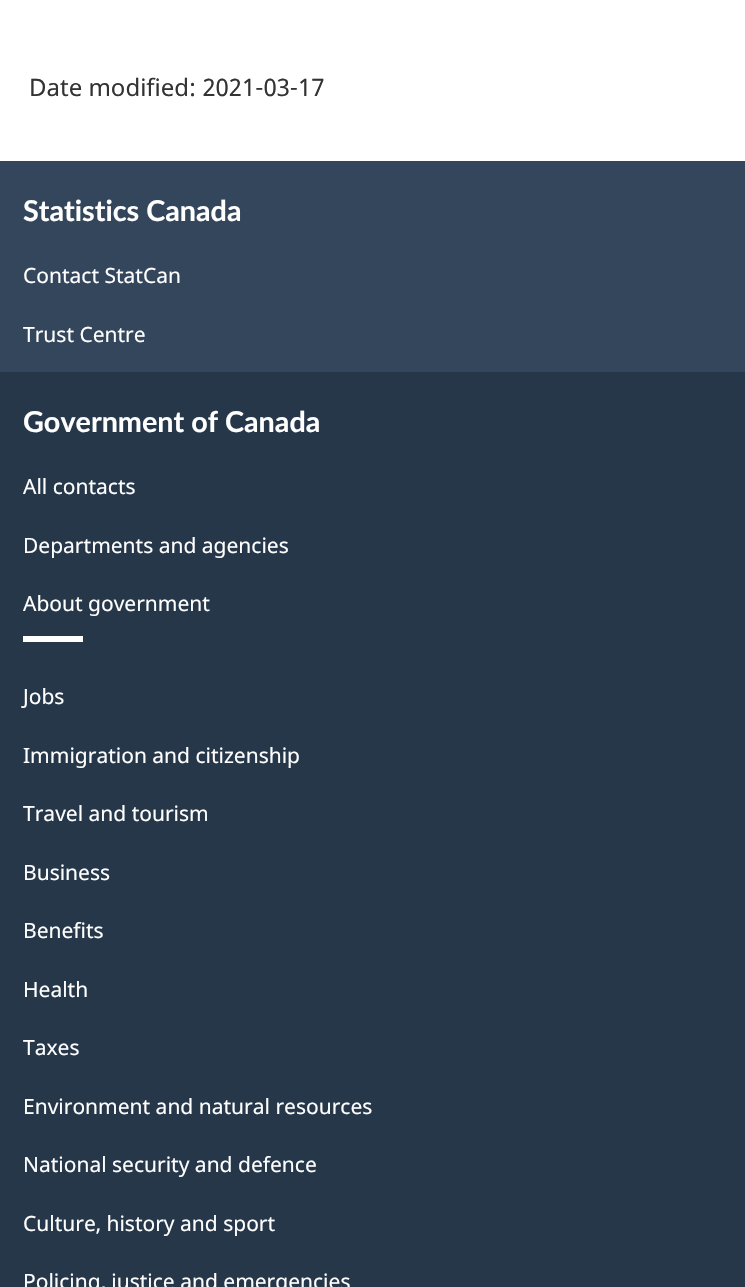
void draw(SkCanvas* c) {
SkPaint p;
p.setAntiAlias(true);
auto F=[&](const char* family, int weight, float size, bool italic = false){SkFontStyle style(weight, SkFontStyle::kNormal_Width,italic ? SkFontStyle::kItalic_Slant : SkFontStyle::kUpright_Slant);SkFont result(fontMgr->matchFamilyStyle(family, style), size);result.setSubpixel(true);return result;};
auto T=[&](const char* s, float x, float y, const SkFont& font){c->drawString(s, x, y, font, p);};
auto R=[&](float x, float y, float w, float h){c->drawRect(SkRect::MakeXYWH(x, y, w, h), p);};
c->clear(0xffffffff);
auto f1 = F("Noto Sans",400,24);
p.setColor(0xff333333);
T("Date modified: 2021-03-17",29,96,f1);
p.setColor(0xff33465c);
R(0,161,745,211);
auto f2 = F("Lato",700,28.75);
p.setColor(0xffffffff);
T("Statistics Canada",23,221,f2);
auto f3 = F("Noto Sans",400,21);
T("Contact StatCan",23,283,f3);
T("Trust Centre",23,342,f3);
p.setColor(0xff26374a);
R(0,372,745,915);
p.setColor(0xffffffff);
T("Government of Canada",23,432,f2);
T("All contacts",23,494,f3);
T("Departments and agencies",23,553,f3);
T("About government",23,611,f3);
R(23,636,60,6);
T("Jobs",23,704,f3);
T("Immigration and citizenship",23,763,f3);
T("Travel and tourism",23,821,f3);
T("Business",23,880,f3);
T("Benefits",23,938,f3);
T("Health",23,997,f3);
T("Taxes",23,1055,f3);
T("Environment and natural resources",23,1114,f3);
T("National security and defence",23,1172,f3);
T("Culture, history and sport",23,1231,f3);
T("Policing, justice and emergencies",23,1289,f3);
}
